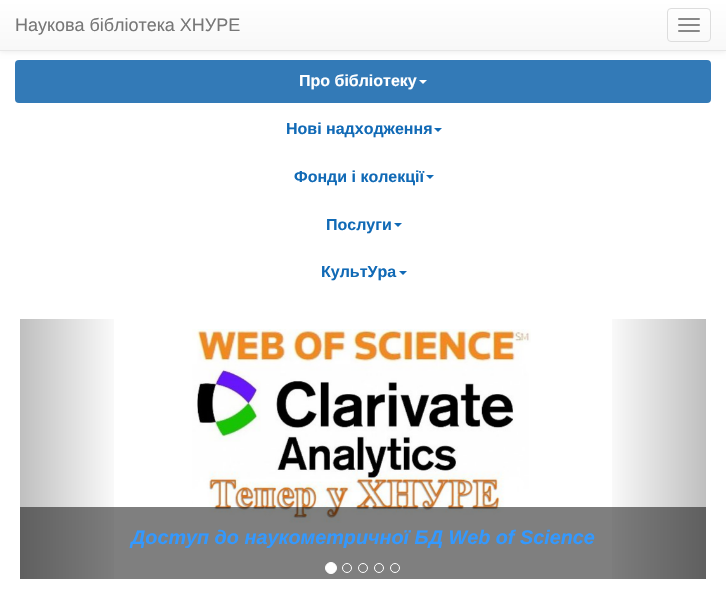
void draw(SkCanvas* c) {
SkPaint p;
p.setAntiAlias(true);
auto F=[&](const char* family, int weight, float size, bool italic = false){SkFontStyle style(weight, SkFontStyle::kNormal_Width,italic ? SkFontStyle::kItalic_Slant : SkFontStyle::kUpright_Slant);SkFont result(fontMgr->matchFamilyStyle(family, style), size);result.setSubpixel(true);return result;};
auto T=[&](const char* s, float x, float y, const SkFont& font){c->drawString(s, x, y, font, p);};
auto R=[&](float x, float y, float w, float h){c->drawRect(SkRect::MakeXYWH(x, y, w, h), p);};
auto Q=[&](float x, float y, float w, float h, float radius){c->drawRoundRect(SkRect::MakeXYWH(x, y, w, h), radius, radius, p);};
auto I=[&](const char* path, float x, float y, float w, float h){auto image = SkImages::DeferredFromEncodedData(SkData::MakeFromFileName(path));c->drawImageRect(image, SkRect::MakeXYWH(x, y, w, h), SkSamplingOptions());};
auto P=[&](const char* data, bool evenOdd = false){SkPath result = *SkParsePath::FromSVGString(data);if (evenOdd) result.setFillType(SkPathFillType::kEvenOdd);return result;};
c->clear(0xffffffff);
p.setColor(0xff337ab7);
Q(15,60,696,43,4);
p.setColor(0x12000000);
p.setMaskFilter(SkMaskFilter::MakeBlur(kNormal_SkBlurStyle, 2.5));
c->drawRect(SkRect::MakeXYWH(0,1,726,51),p);
p.setMaskFilter(nullptr);
{
const SkColor colors[] = {0xffffffff,0xfff8f8f8};
const float stops[] = {0,1};
const SkPoint ends[] = {{363,0}, {363,50}};
p.setShader(SkGradientShader::MakeLinear(ends, colors, stops, 2, SkTileMode::kClamp));
p.setAlpha(255);
}
R(0,0,726,50);
p.setShader(nullptr);
p.setColor(0xffe7e7e7);
R(0,50,726,1);
auto f1 = F("Liberation Sans",400,18);
p.setColor(0xff777777);
T("Наукова бібліотека ХНУРЕ",15,31,f1);
p.setStroke(true);
p.setStrokeWidth(1);
p.setColor(0xffdddddd);
c->drawRoundRect(SkRect::MakeXYWH(667.5,8.5,43,33),3.5,3.5,p);
p.setStroke(false);
p.setColor(0xff888888);
Q(678,18,22,2,1);
Q(678,24,22,2,1);
Q(678,30,22,2,1);
auto f2 = F("Liberation Sans",700,16);
p.setColor(0xffffffff);
T("Про бібліотеку",299,86,f2);
c->drawPath(P("M419 80h8l-4 4z"),p);
p.setColor(0xff116ab6);
T("Нові надходження",286,134,f2);
c->drawPath(P("M434 128h8l-4 4z"),p);
T("Фонди і колекції",294,182,f2);
c->drawPath(P("M426 175h8l-4 4z"),p);
T("Послуги",326,230,f2);
c->drawPath(P("M394 223h8l-4 4z"),p);
T("КультУра",321,277,f2);
c->drawPath(P("M399 271h8l-4 4z"),p);
I("1.png",192,329,339,194);
p.setColor(0x80000000);
R(20,507,686,72);
{
const SkColor colors[] = {0x40000000,0x00000000};
const float stops[] = {0,1};
const SkPoint ends[] = {{20,449}, {123,449}};
p.setShader(SkGradientShader::MakeLinear(ends, colors, stops, 2, SkTileMode::kClamp));
p.setAlpha(255);
}
R(20,319,94,260);
auto f3 = F("Liberation Sans",700,19.8,true);
p.setShader(nullptr);
p.setColor(0xff3399ff);
T("Доступ до наукометричної БД Web of Science",131,544,f3);
{
const SkColor colors[] = {0x00000000,0x40000000};
const float stops[] = {0,1};
const SkPoint ends[] = {{603,449}, {706,449}};
p.setShader(SkGradientShader::MakeLinear(ends, colors, stops, 2, SkTileMode::kClamp));
p.setAlpha(255);
}
R(612,319,94,260);
p.setShader(nullptr);
p.setColor(0xffffffff);
c->drawCircle(331,568,5.5,p);
p.setStroke(true);
c->drawCircle(331,568,5.5,p);
c->drawCircle(347,568,4.5,p);
c->drawCircle(363,568,4.5,p);
c->drawCircle(379,568,4.5,p);
c->drawCircle(395,568,4.5,p);
}
